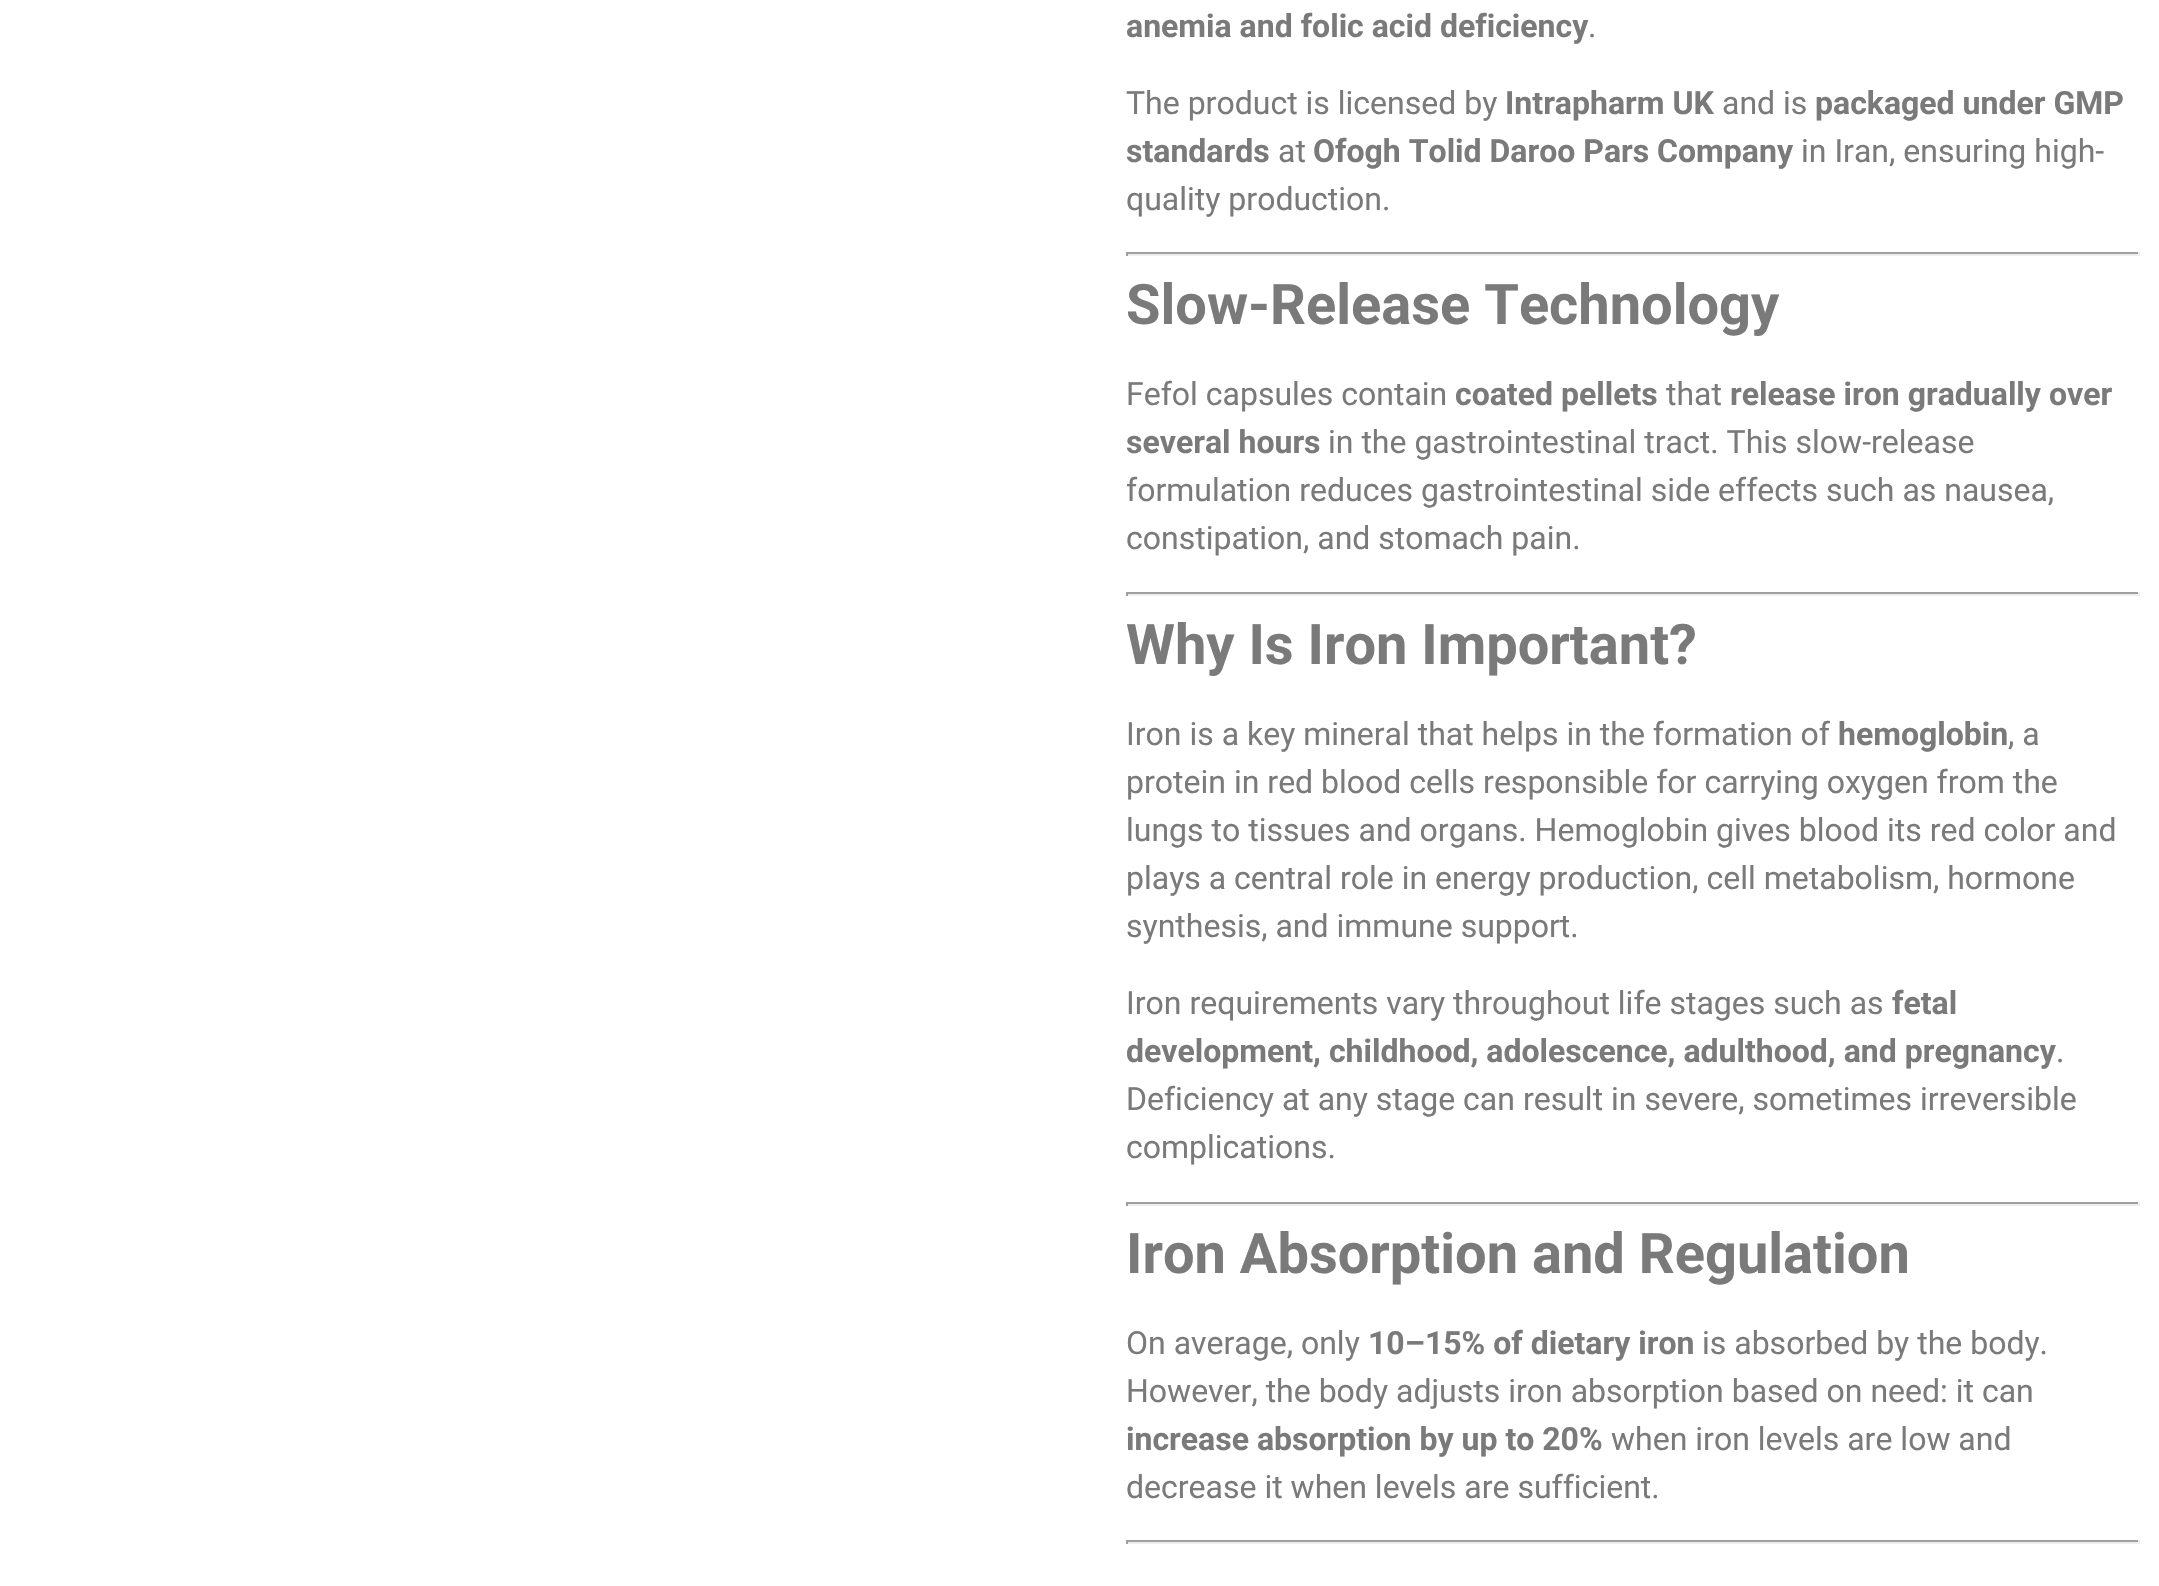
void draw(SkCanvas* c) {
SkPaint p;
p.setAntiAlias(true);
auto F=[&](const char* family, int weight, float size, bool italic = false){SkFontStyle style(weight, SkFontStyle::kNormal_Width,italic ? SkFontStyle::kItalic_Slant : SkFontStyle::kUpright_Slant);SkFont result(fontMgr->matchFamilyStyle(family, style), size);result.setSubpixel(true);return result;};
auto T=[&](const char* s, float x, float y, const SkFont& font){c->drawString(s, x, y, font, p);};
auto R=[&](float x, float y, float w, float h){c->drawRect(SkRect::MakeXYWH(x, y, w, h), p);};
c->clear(0xffffffff);
auto f1 = F("Roboto",700,32);
p.setColor(0xff7a7a7a);
T("anemia and folic acid deficiency",1126,37,f1);
auto f2 = F("Roboto",400,32);
T(".",1588,37,f2);
T("The product is licensed by",1126,114,f2);
T("Intrapharm UK",1505,114,f1);
T("and is",1722,114,f2);
T("packaged under GMP",1815,114,f1);
T("standards",1126,162,f1);
T("at",1278,162,f2);
T("Ofogh Tolid Daroo Pars Company",1313,162,f1);
T("in Iran, ensuring high-",1801,162,f2);
T("quality production.",1126,210,f2);
p.setColor(0xff9f9f9f);
R(1126,252,1014,2);
p.setColor(0xffeeeeee);
R(2138,252,2,4);
R(1126,254,1014,2);
p.setColor(0xff9f9f9f);
R(1126,252,2,4);
auto f3 = F("Roboto",700,56);
p.setColor(0xff7a7a7a);
T("Slow-Release Technology",1126,324,f3);
T("Fefol capsules contain",1126,405,f2);
T("coated pellets",1455,405,f1);
T("that",1666,405,f2);
T("release iron gradually over",1730,405,f1);
T("several hours",1126,453,f1);
T("in the gastrointestinal tract. This slow-release",1328,453,f2);
T("formulation reduces gastrointestinal side effects such as nausea,",1126,501,f2);
T("constipation, and stomach pain.",1126,549,f2);
p.setColor(0xff9f9f9f);
R(1126,592,1014,2);
p.setColor(0xffeeeeee);
R(2138,592,2,4);
R(1126,594,1014,2);
p.setColor(0xff9f9f9f);
R(1126,592,2,4);
p.setColor(0xff7a7a7a);
T("Why Is Iron Important?",1126,664,f3);
T("Iron is a key mineral that helps in the formation of",1126,745,f2);
T("hemoglobin",1838,745,f1);
T(", a",2008,745,f2);
T("protein in red blood cells responsible for carrying oxygen from the",1126,793,f2);
T("lungs to tissues and organs. Hemoglobin gives blood its red color and",1126,841,f2);
T("plays a central role in energy production, cell metabolism, hormone",1126,889,f2);
T("synthesis, and immune support.",1126,937,f2);
T("Iron requirements vary throughout life stages such as",1126,1014,f2);
T("fetal",1892,1014,f1);
T("development, childhood, adolescence, adulthood, and pregnancy",1126,1062,f1);
T(".",2056,1062,f2);
T("Deficiency at any stage can result in severe, sometimes irreversible",1126,1110,f2);
T("complications.",1126,1158,f2);
p.setColor(0xff9f9f9f);
R(1126,1202,1014,2);
p.setColor(0xffeeeeee);
R(2138,1202,2,4);
R(1126,1204,1014,2);
p.setColor(0xff9f9f9f);
R(1126,1202,2,4);
p.setColor(0xff7a7a7a);
T("Iron Absorption and Regulation",1126,1273,f3);
T("On average, only",1126,1354,f2);
T("10–15% of dietary iron",1368,1354,f1);
T("is absorbed by the body.",1702,1354,f2);
T("However, the body adjusts iron absorption based on need: it can",1126,1402,f2);
T("increase absorption by up to 20%",1126,1450,f1);
T("when iron levels are low and",1611,1450,f2);
T("decrease it when levels are sufficient.",1126,1498,f2);
p.setColor(0xff9f9f9f);
R(1126,1540,1014,2);
p.setColor(0xffeeeeee);
R(2138,1540,2,4);
R(1126,1542,1014,2);
p.setColor(0xff9f9f9f);
R(1126,1540,2,4);
}
